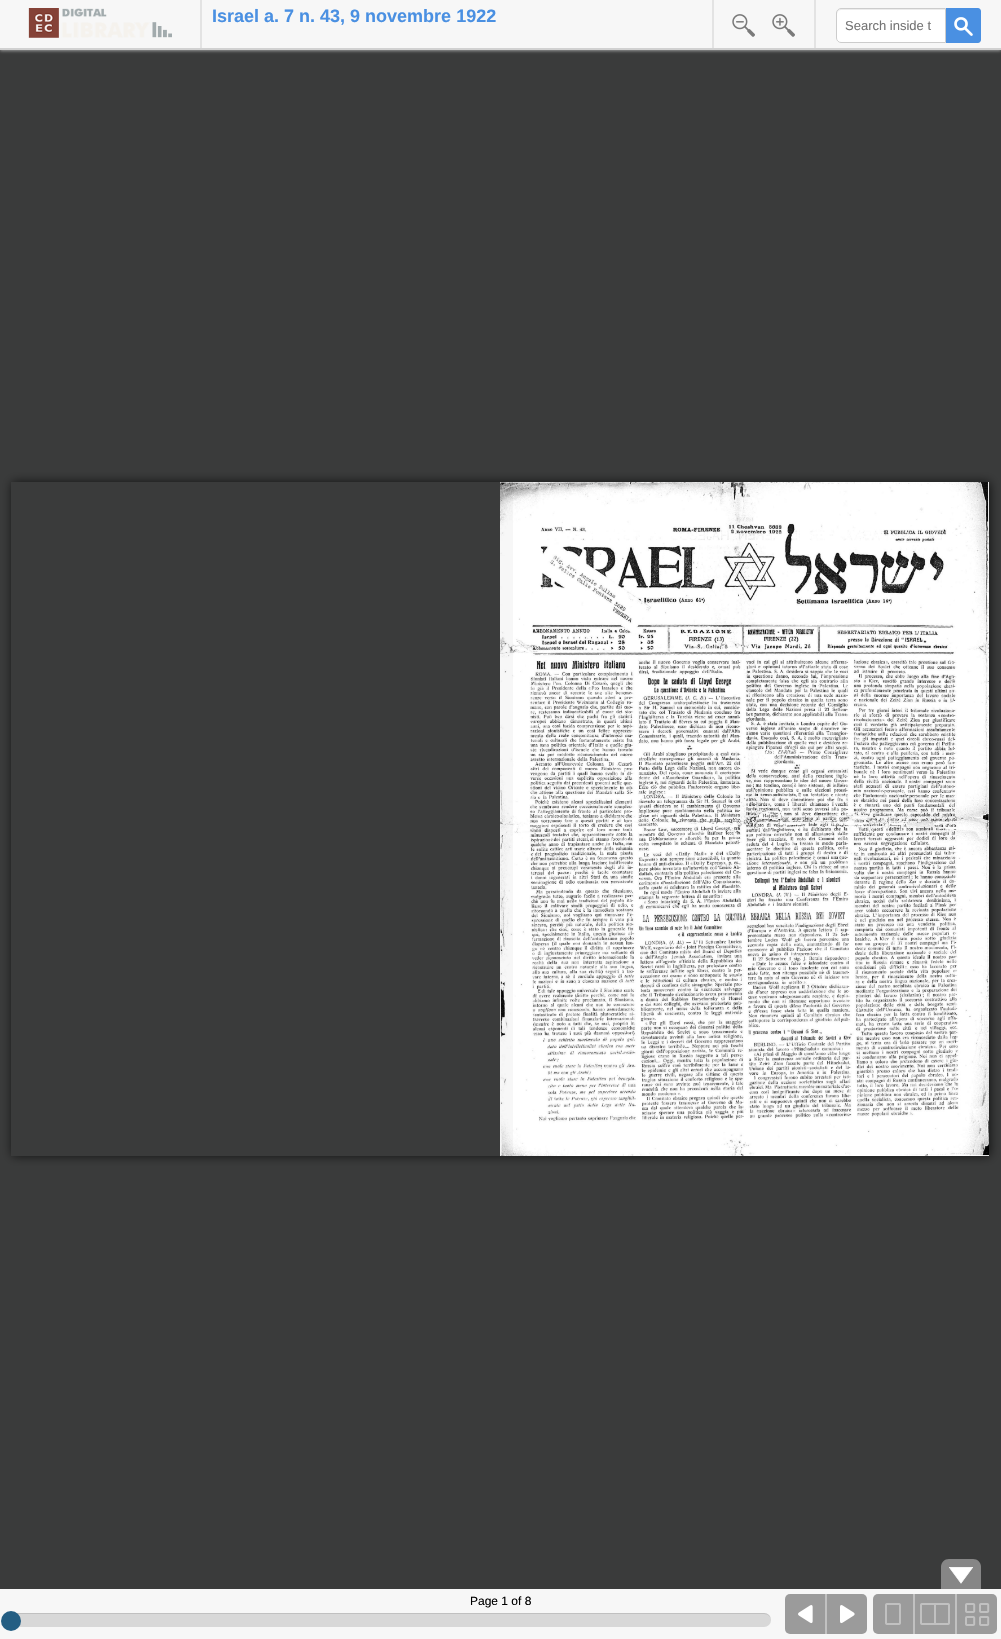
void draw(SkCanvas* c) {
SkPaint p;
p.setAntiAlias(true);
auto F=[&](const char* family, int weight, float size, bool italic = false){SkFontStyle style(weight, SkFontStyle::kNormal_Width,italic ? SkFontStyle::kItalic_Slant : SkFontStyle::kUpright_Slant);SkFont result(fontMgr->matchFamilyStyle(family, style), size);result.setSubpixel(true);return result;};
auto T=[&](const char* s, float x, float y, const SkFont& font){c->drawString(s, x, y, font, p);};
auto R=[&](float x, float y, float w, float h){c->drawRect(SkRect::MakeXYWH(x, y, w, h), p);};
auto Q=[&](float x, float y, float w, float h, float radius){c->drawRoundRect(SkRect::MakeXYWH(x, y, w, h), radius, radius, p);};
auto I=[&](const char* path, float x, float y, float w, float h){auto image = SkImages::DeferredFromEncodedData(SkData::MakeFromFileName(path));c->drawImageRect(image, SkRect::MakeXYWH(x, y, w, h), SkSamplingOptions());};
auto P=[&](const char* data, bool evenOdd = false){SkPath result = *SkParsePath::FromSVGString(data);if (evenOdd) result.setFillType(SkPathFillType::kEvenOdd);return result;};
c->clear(0xff3a3b3b);
p.setColor(0xff999999);
p.setMaskFilter(SkMaskFilter::MakeBlur(kNormal_SkBlurStyle, 1.5));
c->drawRect(SkRect::MakeXYWH(0,1,1001,50),p);
p.setMaskFilter(nullptr);
p.setColor(0xfff7f7f7);
R(0,0,1001,48);
p.setColor(0xffd1d1d1);
R(0,48,1001,2);
p.setColor(0xffe3e3e3);
R(200,0,2,48);
I("1.png",28,8,144,30);
auto f1 = F("Liberation Sans",700,18);
p.setColor(0xff4a90e2);
T("Israel a. 7 n. 43, 9 novembre 1922",212,22,f1);
p.setColor(0xffe3e3e3);
R(712,0,2,48);
R(814,0,2,48);
I("2.png",732,14,23,23);
I("3.png",772,14,23,23);
p.setColor(0xffffffff);
c->drawPath(P("M841 8h105v35h-105c-3 0-5-2-5-5v-25c0-3 2-5 5-5z"),p);
p.setColor(0xffececec);
c->drawPath(P("M841 10h104v-1h-104c-2 0-4 2-4 4v1c0-2 2-4 4-4z"),p);
p.setStroke(true);
p.setStrokeWidth(1);
p.setColor(0xffcccccc);
c->drawPath(P("M841 8.5h104.5v34h-104.5c-2.5 0-4.5-2-4.5-4.5v-25c0-2.5 2-4.5 4.5-4.5z"),p);
auto f2 = F("Liberation Sans",400,13);
p.setStroke(false);
p.setColor(0xff757575);
T("Search inside t",845,30,f2);
p.setColor(0xff4a90e2);
c->drawPath(P("M946 8h32c1.5 0 3 1.5 3 3v29c0 1.5-1.5 3-3 3h-32z"),p);
I("4.png",954,17,19,19);
c->save();
c->clipPath(P("M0 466h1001v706h-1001zm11 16h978v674h-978z",true),true);
p.setColor(0xff111111);
p.setMaskFilter(SkMaskFilter::MakeBlur(kNormal_SkBlurStyle, 5));
c->drawRect(SkRect::MakeXYWH(12,482,978,674),p);
p.setMaskFilter(nullptr);
c->restore();
I("5.png",500,482,489,674);
p.setColor(0x08000000);
R(500,482,13,674);
p.setColor(0xfff7f7f7);
R(0,1589,1001,50);
p.setColor(0xff868686);
c->drawPath(P("M949 1559h24c4.5 0 8 3.5 8 8v22h-40v-22c0-4.5 3.5-8 8-8z"),p);
I("6.png",949,1567,24,17);
auto f3 = F("Liberation Sans",400,12);
p.setColor(0xff000000);
T("Page 1 of 8",470,1605,f3);
I("7.png",785,1594,40,40);
p.setColor(0xffc1c1c1);
R(825,1594,2,40);
I("8.png",827,1594,40,40);
I("9.png",873,1594,40,40);
R(913,1594,2,40);
I("10.png",915,1594,40,40);
I("11.png",957,1594,40,40);
R(955,1594,2,40);
p.setColor(0xffd8d8d8);
Q(10,1613,761,14,7);
p.setColor(0x639b9a9b);
c->drawPath(P("M17 1614h747c4 0 7 3 7 6c0-4-3-7-7-7h-747c-2 0-4 1-5 2l-1 2l-1 3c0-3 3-6 7-6z"),p);
p.setColor(0xff245e83);
c->drawCircle(11,1621,10,p);
}
